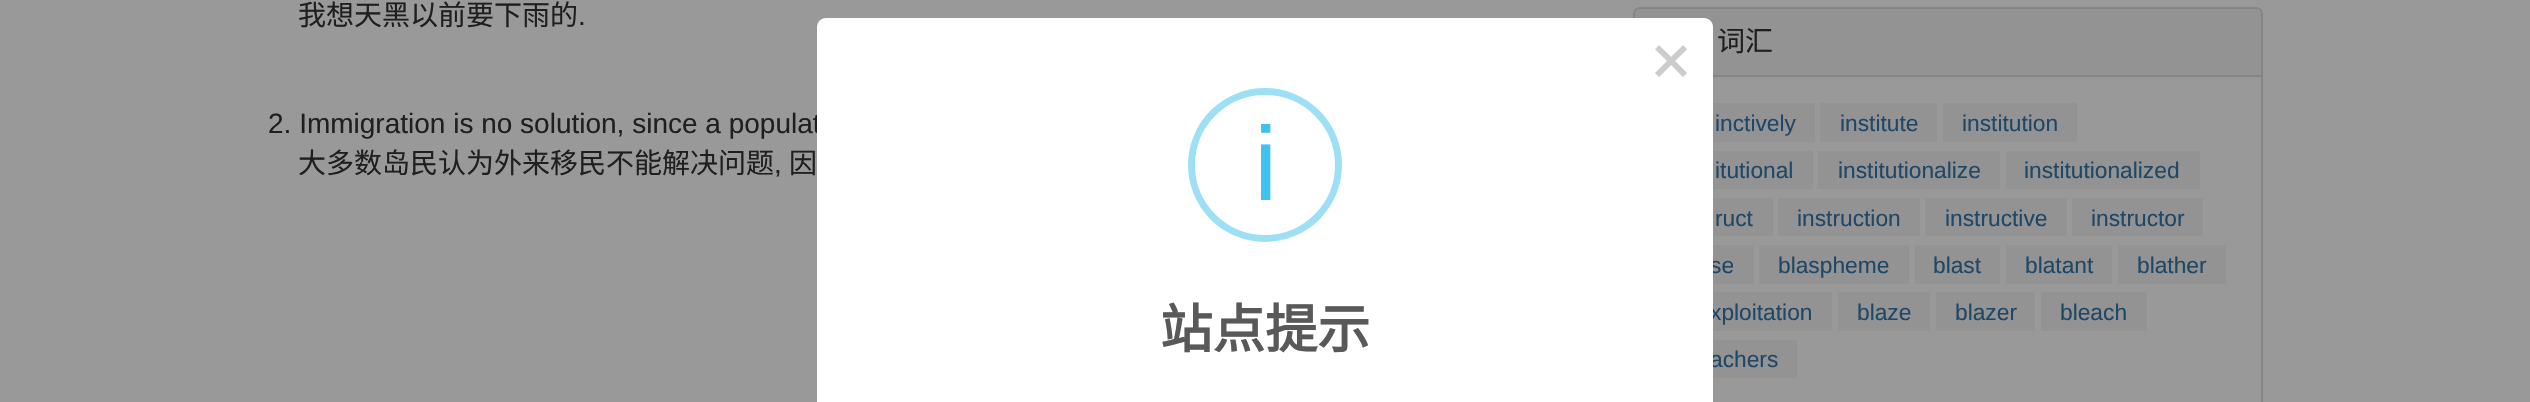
void draw(SkCanvas* c) {
SkPaint p;
p.setAntiAlias(true);
auto F=[&](const char* family, int weight, float size, bool italic = false){SkFontStyle style(weight, SkFontStyle::kNormal_Width,italic ? SkFontStyle::kItalic_Slant : SkFontStyle::kUpright_Slant);SkFont result(fontMgr->matchFamilyStyle(family, style), size);result.setSubpixel(true);return result;};
auto T=[&](const char* s, float x, float y, const SkFont& font){c->drawString(s, x, y, font, p);};
auto R=[&](float x, float y, float w, float h){c->drawRect(SkRect::MakeXYWH(x, y, w, h), p);};
auto P=[&](const char* data, bool evenOdd = false){SkPath result = *SkParsePath::FromSVGString(data);if (evenOdd) result.setFillType(SkPathFillType::kEvenOdd);return result;};
c->clear(0xff999999);
auto f1 = F("Noto Sans CJK SC",400,28);
p.setColor(0xff1f1f1f);
T("我想天黑以前要下雨的",298,25,f1);
auto f2 = F("Liberation Sans",400,28);
T(".",578,25,f2);
T("2. Immigration is no solution, since a populat",268,133,f2);
T("大多数岛民认为外来移民不能解决问题",298,173,f1);
T(",",774,173,f2);
T("因",789,173,f1);
p.setStroke(true);
p.setStrokeWidth(2);
p.setColor(0xff858585);
c->drawRoundRect(SkRect::MakeXYWH(1634,8,628,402),6,6,p);
p.setStroke(false);
p.setColor(0xff939393);
c->drawPath(P("M1640 9h616c3 0 5 2 5 5v63h-626v-63c0-3 2-5 5-5z"),p);
p.setColor(0xff858585);
R(1713,75,548,2);
p.setColor(0xff1f1f1f);
T("词汇",1717,51,f1);
p.setColor(0xff939393);
R(1713,103,102,39);
auto f3 = F("Liberation Sans",400,22.75);
p.setColor(0xff1f4766);
T("inctively",1715,131,f3);
p.setColor(0xff939393);
R(1820,103,117,39);
p.setColor(0xff1f4766);
T("institute",1840,131,f3);
p.setColor(0xff939393);
R(1943,103,134,39);
p.setColor(0xff1f4766);
T("institution",1962,131,f3);
p.setColor(0xff939393);
R(1713,151,100,38);
p.setColor(0xff1f4766);
T("itutional",1715,178,f3);
p.setColor(0xff939393);
R(1818,151,182,38);
p.setColor(0xff1f4766);
T("institutionalize",1838,178,f3);
p.setColor(0xff939393);
R(2006,151,194,38);
p.setColor(0xff1f4766);
T("institutionalized",2024,178,f3);
p.setColor(0xff939393);
R(1713,198,60,38);
p.setColor(0xff1f4766);
T("ruct",1715,226,f3);
p.setColor(0xff939393);
R(1778,198,142,38);
p.setColor(0xff1f4766);
T("instruction",1797,226,f3);
p.setColor(0xff939393);
R(1925,198,142,38);
p.setColor(0xff1f4766);
T("instructive",1945,226,f3);
p.setColor(0xff939393);
R(2072,198,131,38);
p.setColor(0xff1f4766);
T("instructor",2091,226,f3);
p.setColor(0xff939393);
R(1713,245,41,39);
p.setColor(0xff1f4766);
T("se",1710,273,f3);
p.setColor(0xff939393);
R(1759,245,150,39);
p.setColor(0xff1f4766);
T("blaspheme",1778,273,f3);
p.setColor(0xff939393);
R(1915,245,85,39);
p.setColor(0xff1f4766);
T("blast",1933,273,f3);
p.setColor(0xff939393);
R(2006,245,106,39);
p.setColor(0xff1f4766);
T("blatant",2025,273,f3);
p.setColor(0xff939393);
R(2118,245,108,39);
p.setColor(0xff1f4766);
T("blather",2137,273,f3);
p.setColor(0xff939393);
R(1713,292,119,39);
p.setColor(0xff1f4766);
T("xploitation",1710,320,f3);
p.setColor(0xff939393);
R(1838,292,92,39);
p.setColor(0xff1f4766);
T("blaze",1857,320,f3);
p.setColor(0xff939393);
R(1936,292,99,39);
p.setColor(0xff1f4766);
T("blazer",1955,320,f3);
p.setColor(0xff939393);
R(2041,292,106,39);
p.setColor(0xff1f4766);
T("bleach",2060,320,f3);
p.setColor(0xff939393);
R(1713,340,84,38);
p.setColor(0xff1f4766);
T("achers",1710,367,f3);
p.setColor(0xffffffff);
c->drawPath(P("M826 18h878c5 0 9 4 9 9v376h-896v-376c0-5 4-9 9-9z"),p);
auto f4 = F("DejaVu Sans Mono",400,70);
p.setColor(0xffcccccc);
T("×",1650,83,f4);
p.setStroke(true);
p.setStrokeWidth(7);
p.setColor(0xff9de0f6);
c->drawCircle(1265,165,73.5,p);
auto f5 = F("Liberation Sans",400,105);
p.setStroke(false);
p.setColor(0xff3fc3ee);
T("i",1254,200,f5);
auto f6 = F("Noto Sans CJK SC",700,52.5);
p.setColor(0xff595959);
T("站点提示",1160,348,f6);
}
